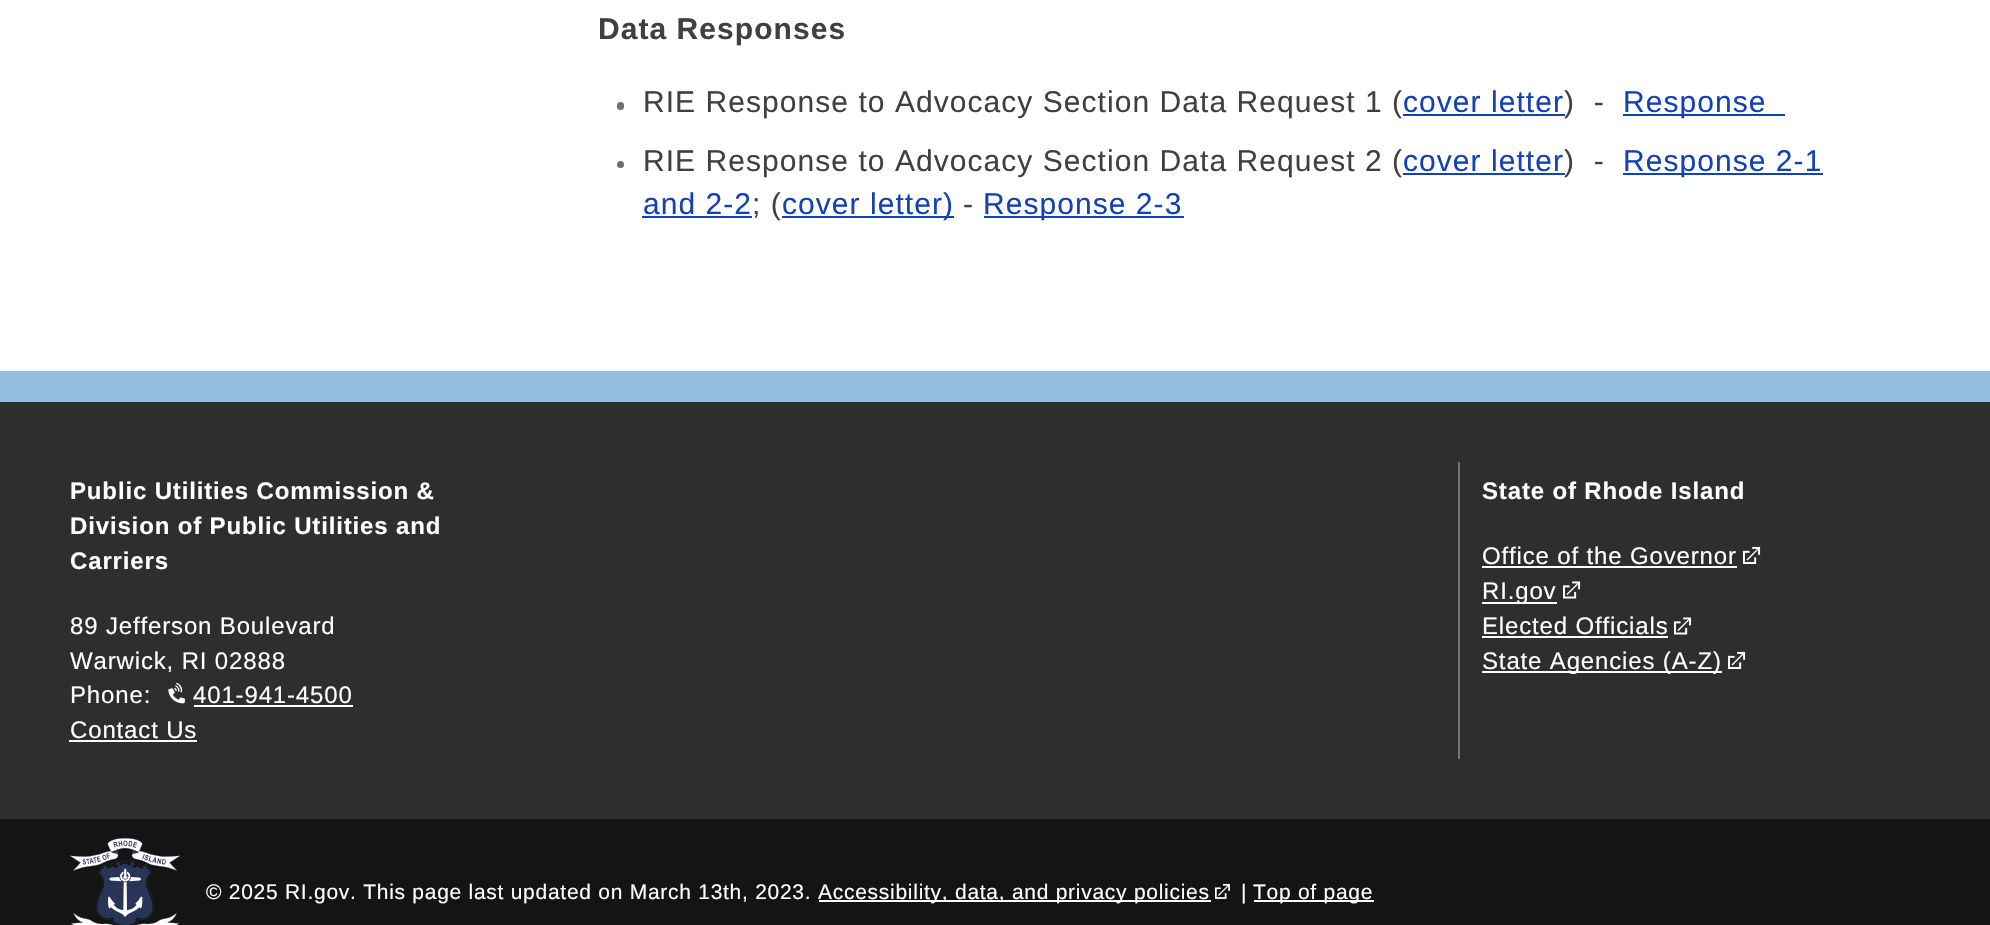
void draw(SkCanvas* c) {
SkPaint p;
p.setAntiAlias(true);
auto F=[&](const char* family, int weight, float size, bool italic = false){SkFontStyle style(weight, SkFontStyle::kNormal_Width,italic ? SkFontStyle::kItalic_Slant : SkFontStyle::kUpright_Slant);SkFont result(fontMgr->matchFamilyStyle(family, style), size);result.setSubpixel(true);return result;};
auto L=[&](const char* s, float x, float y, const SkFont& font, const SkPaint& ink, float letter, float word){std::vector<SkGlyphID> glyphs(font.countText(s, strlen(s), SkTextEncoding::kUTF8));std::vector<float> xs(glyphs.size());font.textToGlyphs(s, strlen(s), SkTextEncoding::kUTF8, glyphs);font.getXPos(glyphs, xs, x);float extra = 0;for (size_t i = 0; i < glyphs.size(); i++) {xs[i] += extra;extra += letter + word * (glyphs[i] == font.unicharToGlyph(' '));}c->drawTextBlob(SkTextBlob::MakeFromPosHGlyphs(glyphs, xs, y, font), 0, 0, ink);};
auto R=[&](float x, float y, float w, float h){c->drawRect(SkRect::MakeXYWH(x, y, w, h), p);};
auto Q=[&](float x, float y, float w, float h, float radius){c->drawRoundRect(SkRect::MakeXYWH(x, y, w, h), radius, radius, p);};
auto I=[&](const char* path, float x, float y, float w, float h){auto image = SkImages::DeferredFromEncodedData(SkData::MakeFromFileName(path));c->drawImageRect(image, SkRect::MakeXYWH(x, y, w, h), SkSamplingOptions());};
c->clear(0xffffffff);
auto f1 = F("Liberation Sans",700,30);
p.setColor(0xff404040);
L("Data Responses",598,39,f1,p,1.05,0);
p.setColor(0xff6e6e6e);
Q(617,102,7,8,3.5);
auto f2 = F("Liberation Sans",400,30);
p.setColor(0xff404040);
L("RIE Response to Advocacy Section Data Request 1 (",643,112,f2,p,1.05,0);
p.setColor(0xff1440b8);
L("cover letter",1403,112,f2,p,1.05,0);
R(1403,114,162,2);
p.setColor(0xff404040);
L(")  -",1564,112,f2,p,1.05,0);
p.setColor(0xff1440b8);
R(1623,114,162,2);
L("Response",1623,112,f2,p,1.05,0);
p.setColor(0xff6e6e6e);
c->drawCircle(620.5,164.5,3.5,p);
p.setColor(0xff404040);
L("RIE Response to Advocacy Section Data Request 2 (",643,171,f2,p,1.05,0);
p.setColor(0xff1440b8);
L("cover letter",1403,171,f2,p,1.05,0);
R(1403,173,162,2);
p.setColor(0xff404040);
L(")  -",1564,171,f2,p,1.05,0);
p.setColor(0xff1440b8);
R(1623,173,200,2);
L("Response 2-1",1623,171,f2,p,1.05,0);
L("and 2-2",643,214,f2,p,1.05,0);
R(642,216,110,2);
p.setColor(0xff404040);
L("; (",752,214,f2,p,1.05,0);
p.setColor(0xff1440b8);
R(782,216,172,2);
L("cover letter)",782,214,f2,p,1.05,0);
p.setColor(0xff404040);
L("-",963,214,f2,p,1.05,0);
p.setColor(0xff1440b8);
R(984,216,200,2);
L("Response 2-3",983,214,f2,p,1.05,0);
p.setColor(0xff2e2e2e);
R(0,402,1990,417);
p.setColor(0xff95bddf);
R(0,371,1990,31);
auto f3 = F("Liberation Sans",700,24);
p.setColor(0xffffffff);
L("Public Utilities Commission &",70,499,f3,p,.85,0);
L("Division of Public Utilities and",70,534,f3,p,.85,0);
L("Carriers",70,569,f3,p,.85,0);
auto f4 = F("Liberation Sans",400,24);
L("89 Jefferson Boulevard",70,634,f4,p,.85,0);
L("Warwick, RI 02888",70,669,f4,p,.85,0);
L("Phone:",70,703,f4,p,.85,0);
I("1.png",168,683,17,21);
L("401-941-4500",193,703,f4,p,.85,0);
R(194,705,159,2);
L("Contact Us",70,738,f4,p,.85,0);
R(69,740,128,2);
p.setColor(0xff737373);
R(1458,462,2,297);
p.setColor(0xffffffff);
L("State of Rhode Island",1482,499,f3,p,.85,0);
L("Office of the Governor",1482,564,f4,p,.85,0);
R(1482,566,255,2);
I("2.png",1743,546,18,18);
R(1482,602,75,2);
L("RI.gov",1482,599,f4,p,.85,0);
I("3.png",1563,581,18,18);
L("Elected Officials",1482,634,f4,p,.85,0);
R(1482,636,186,2);
I("3.png",1674,617,18,18);
R(1482,671,240,2);
L("State Agencies (A-Z)",1482,669,f4,p,.85,0);
I("2.png",1728,651,18,18);
p.setColor(0xff141414);
R(0,819,1990,106);
I("4.png",69,838,112,87);
auto f5 = F("Liberation Sans",400,21);
p.setColor(0xffffffff);
L("© 2025 RI.gov. This page last updated on March 13th, 2023.",206,899,f5,p,.73,0);
R(819,900,392,2);
L("Accessibility, data, and privacy policies",818,899,f5,p,.73,0);
I("5.png",1215,883,15,16);
L("|",1241,899,f5,p,.73,0);
R(1254,900,120,2);
L("Top of page",1253,899,f5,p,.73,0);
}
